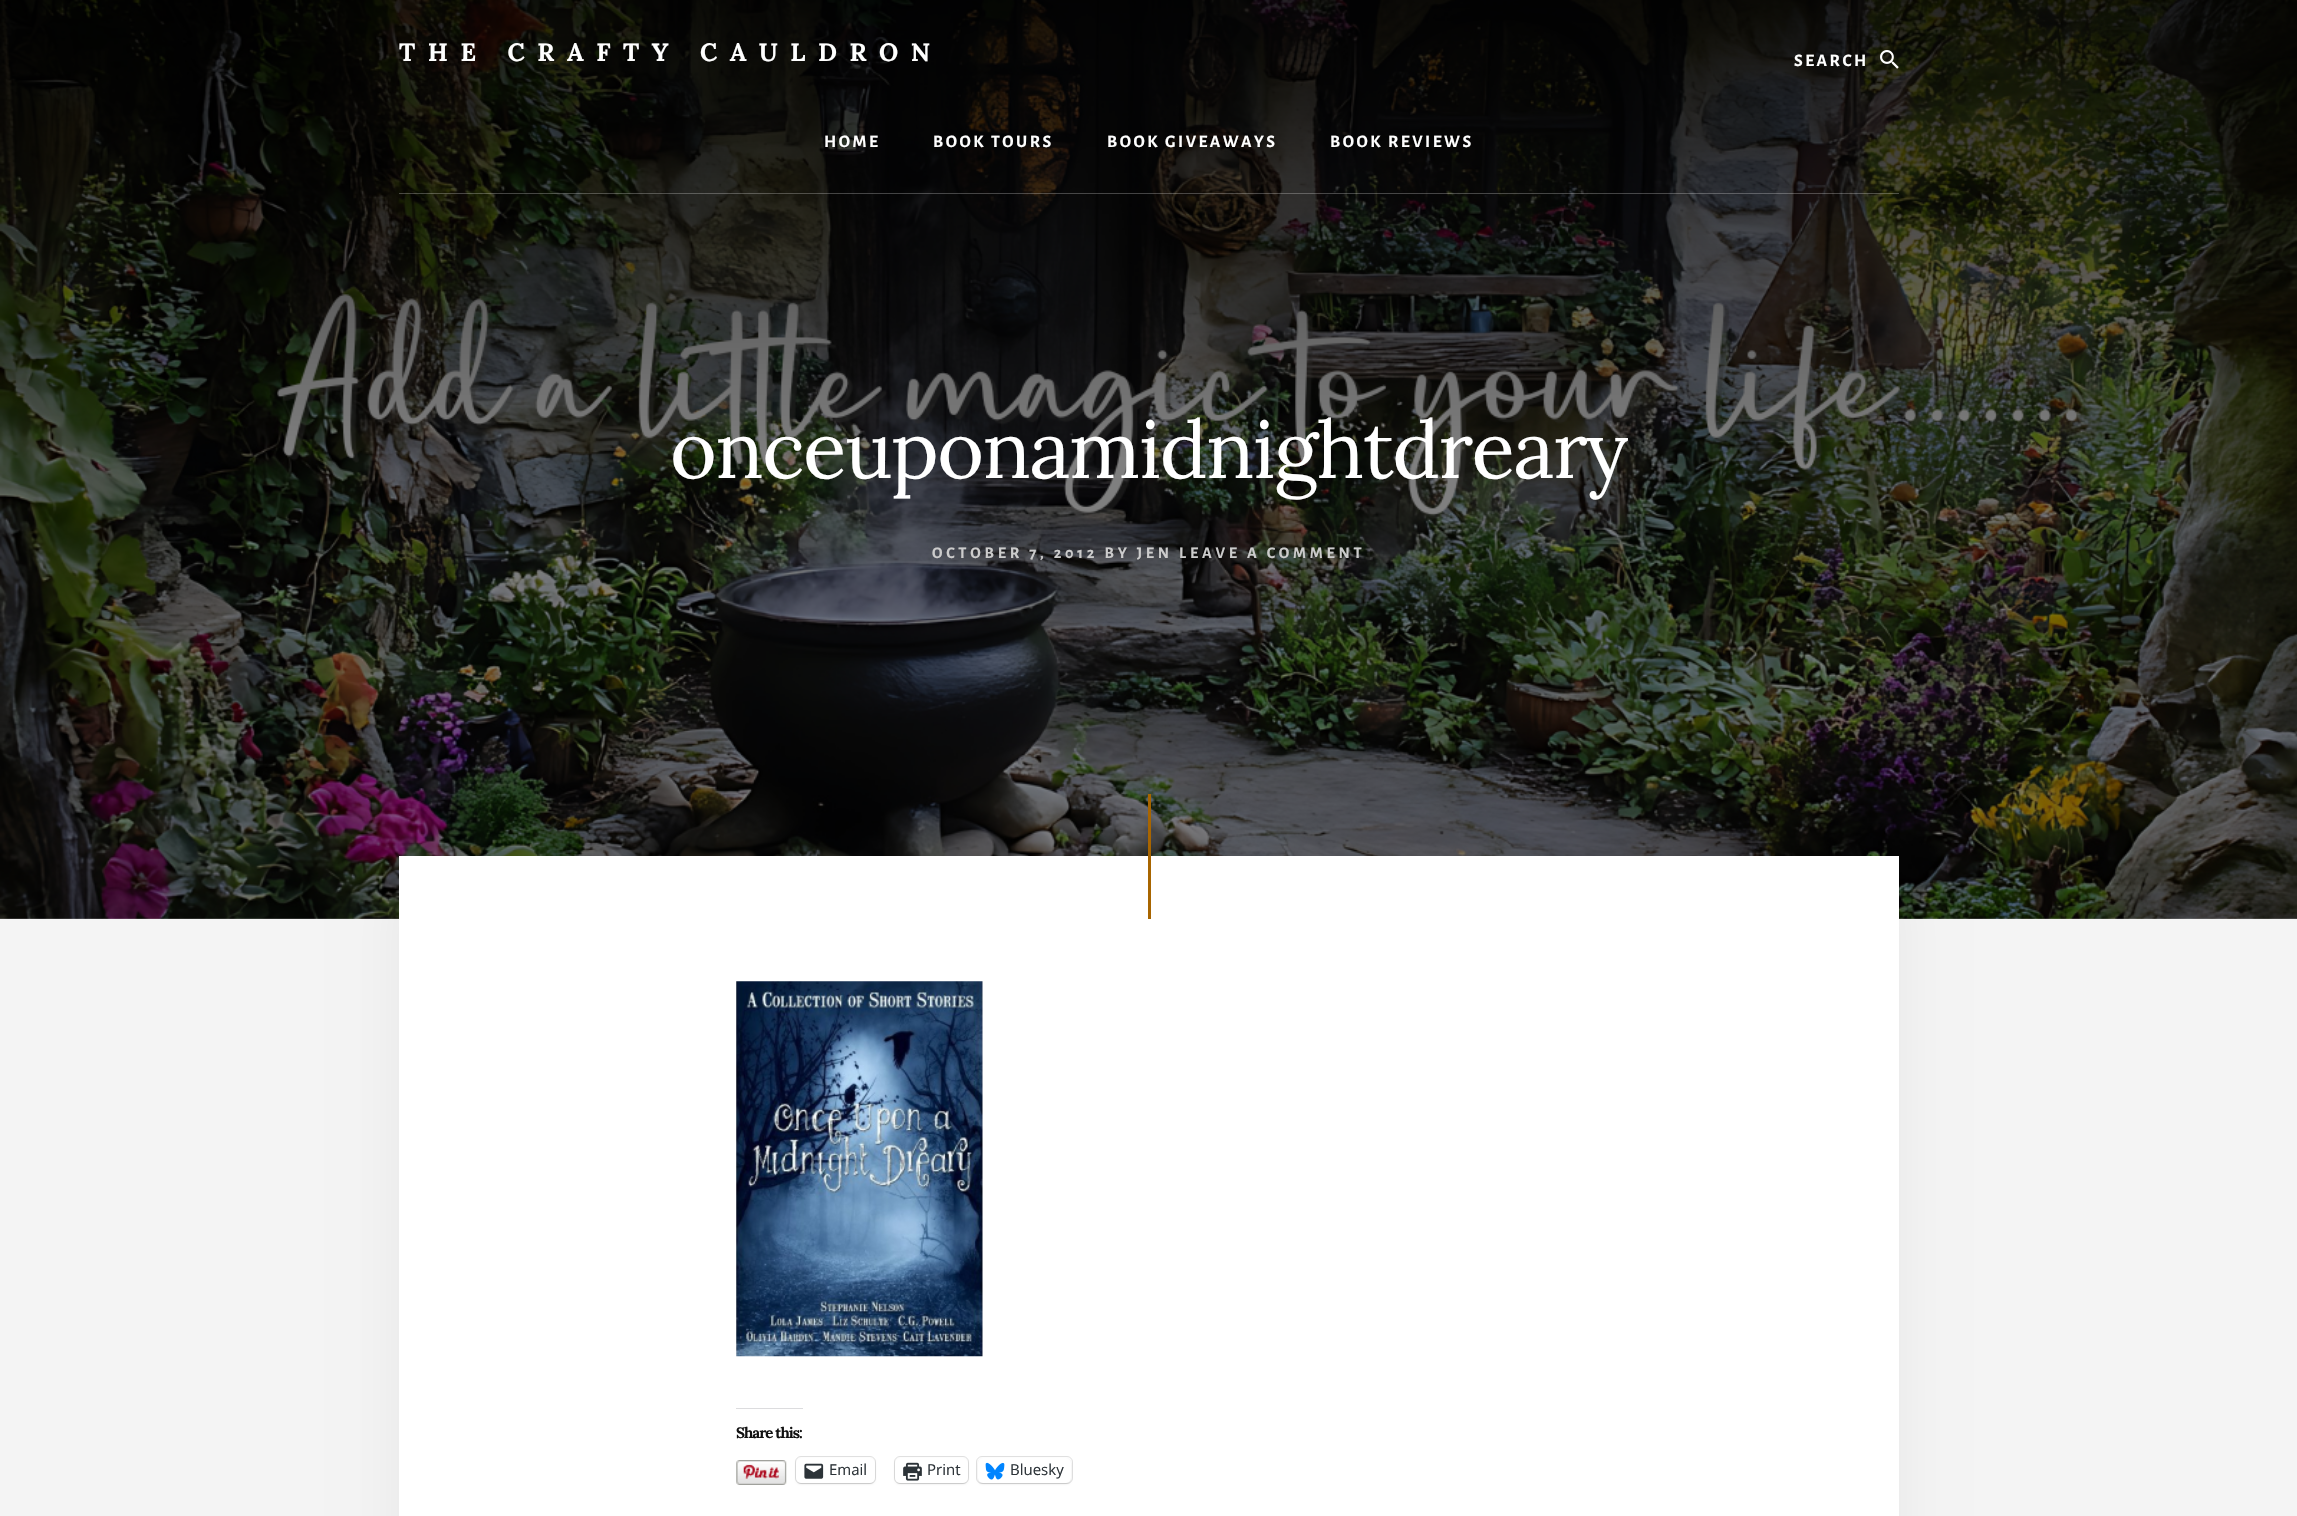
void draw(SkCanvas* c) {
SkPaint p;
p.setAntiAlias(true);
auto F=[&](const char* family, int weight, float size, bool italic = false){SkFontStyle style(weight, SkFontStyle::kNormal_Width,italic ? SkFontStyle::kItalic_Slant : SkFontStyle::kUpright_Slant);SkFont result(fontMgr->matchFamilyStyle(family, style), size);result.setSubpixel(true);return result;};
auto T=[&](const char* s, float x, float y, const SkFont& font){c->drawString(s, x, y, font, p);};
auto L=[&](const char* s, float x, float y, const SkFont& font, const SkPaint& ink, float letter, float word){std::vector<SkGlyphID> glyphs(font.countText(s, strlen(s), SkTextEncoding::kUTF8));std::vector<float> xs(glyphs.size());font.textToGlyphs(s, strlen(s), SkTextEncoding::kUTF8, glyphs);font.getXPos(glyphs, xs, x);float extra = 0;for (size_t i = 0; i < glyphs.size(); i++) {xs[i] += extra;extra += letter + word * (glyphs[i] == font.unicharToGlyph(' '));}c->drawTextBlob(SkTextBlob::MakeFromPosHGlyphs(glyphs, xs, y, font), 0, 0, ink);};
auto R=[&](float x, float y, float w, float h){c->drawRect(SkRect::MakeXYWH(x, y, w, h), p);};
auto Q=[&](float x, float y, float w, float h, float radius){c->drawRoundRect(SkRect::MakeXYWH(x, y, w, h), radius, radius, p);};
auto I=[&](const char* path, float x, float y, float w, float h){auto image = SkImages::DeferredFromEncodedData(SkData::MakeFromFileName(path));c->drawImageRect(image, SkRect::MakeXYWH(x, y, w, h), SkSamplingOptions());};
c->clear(0xfff4f4f4);
I("1.png",0,0,2297,919);
auto f1 = F("Lora",700,25);
p.setColor(0xffffffff);
L("THE CRAFTY CAULDRON",399,61,f1,p,12.5,0);
auto f2 = F("Alegreya Sans",700,17.5);
L("SEARCH",1794,66,f2,p,2.5,0);
I("2.png",1880,50,19,19);
p.setColor(0x40ffffff);
R(399,193,1500,1);
p.setColor(0xffffffff);
L("HOME",824,147,f2,p,2.5,0);
L("BOOK TOURS",933,147,f2,p,2.5,0);
L("BOOK GIVEAWAYS",1107,147,f2,p,2.5,0);
L("BOOK REVIEWS",1330,147,f2,p,2.5,0);
auto f3 = F("Lora",400,80);
L("onceuponamidnightdreary",670,478,f3,p,-1.6,0);
auto f4 = F("Alegreya Sans",700,16.25);
p.setColor(0xffcccccc);
L("OCTOBER 7, 2012 BY JEN LEAVE A COMMENT",932,558,f4,p,3.75,0);
p.setColor(0x0d000000);
p.setMaskFilter(SkMaskFilter::MakeBlur(kNormal_SkBlurStyle, 25));
c->drawRect(SkRect::MakeXYWH(399,888,1500,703),p);
p.setMaskFilter(nullptr);
p.setColor(0xffffffff);
R(399,856,1500,660);
p.setColor(0xffa86500);
R(1148,794,3,125);
I("3.png",736,981,247,376);
p.setColor(0xffdcdcde);
R(736,1408,67,1);
auto f5 = F("Lora",700,15);
p.setColor(0xff111111);
L("Share this:",736,1438,f5,p,-1,0);
I("4.png",736,1460,51,25);
p.setStroke(true);
p.setStrokeWidth(1);
p.setColor(0xffe0e0e0);
c->drawRoundRect(SkRect::MakeXYWH(795.5,1456.5,80,27),5.5,5.5,p);
p.setStroke(false);
p.setColor(0x1f000000);
p.setMaskFilter(SkMaskFilter::MakeBlur(kNormal_SkBlurStyle, 1));
c->drawRoundRect(SkRect::MakeXYWH(796,1459,79,25),5,5,p);
p.setMaskFilter(nullptr);
p.setColor(0xffffffff);
Q(796,1458,79,25,5);
I("5.png",804,1463,20,16);
auto f6 = F("Open Sans",400,15);
p.setColor(0xff2c3338);
T("Email",829,1475,f6);
p.setStroke(true);
p.setColor(0xffe0e0e0);
c->drawRoundRect(SkRect::MakeXYWH(894.5,1456.5,74,27),5.5,5.5,p);
p.setStroke(false);
p.setColor(0x1f000000);
p.setMaskFilter(SkMaskFilter::MakeBlur(kNormal_SkBlurStyle, 1));
c->drawRoundRect(SkRect::MakeXYWH(895,1459,73,25),5,5,p);
p.setMaskFilter(nullptr);
p.setColor(0xffffffff);
Q(895,1458,73,25,5);
I("6.png",903,1462,19,19);
p.setColor(0xff2c3338);
T("Print",927,1475,f6);
p.setStroke(true);
p.setColor(0xffe0e0e0);
c->drawRoundRect(SkRect::MakeXYWH(976.5,1456.5,96,27),5.5,5.5,p);
p.setStroke(false);
p.setColor(0x1f000000);
p.setMaskFilter(SkMaskFilter::MakeBlur(kNormal_SkBlurStyle, 1));
c->drawRoundRect(SkRect::MakeXYWH(978,1459,93,25),5,5,p);
p.setMaskFilter(nullptr);
p.setColor(0xffffffff);
Q(978,1458,93,25,5);
I("7.png",985,1462,20,18);
p.setColor(0xff2c3338);
T("Bluesky",1010,1475,f6);
}
